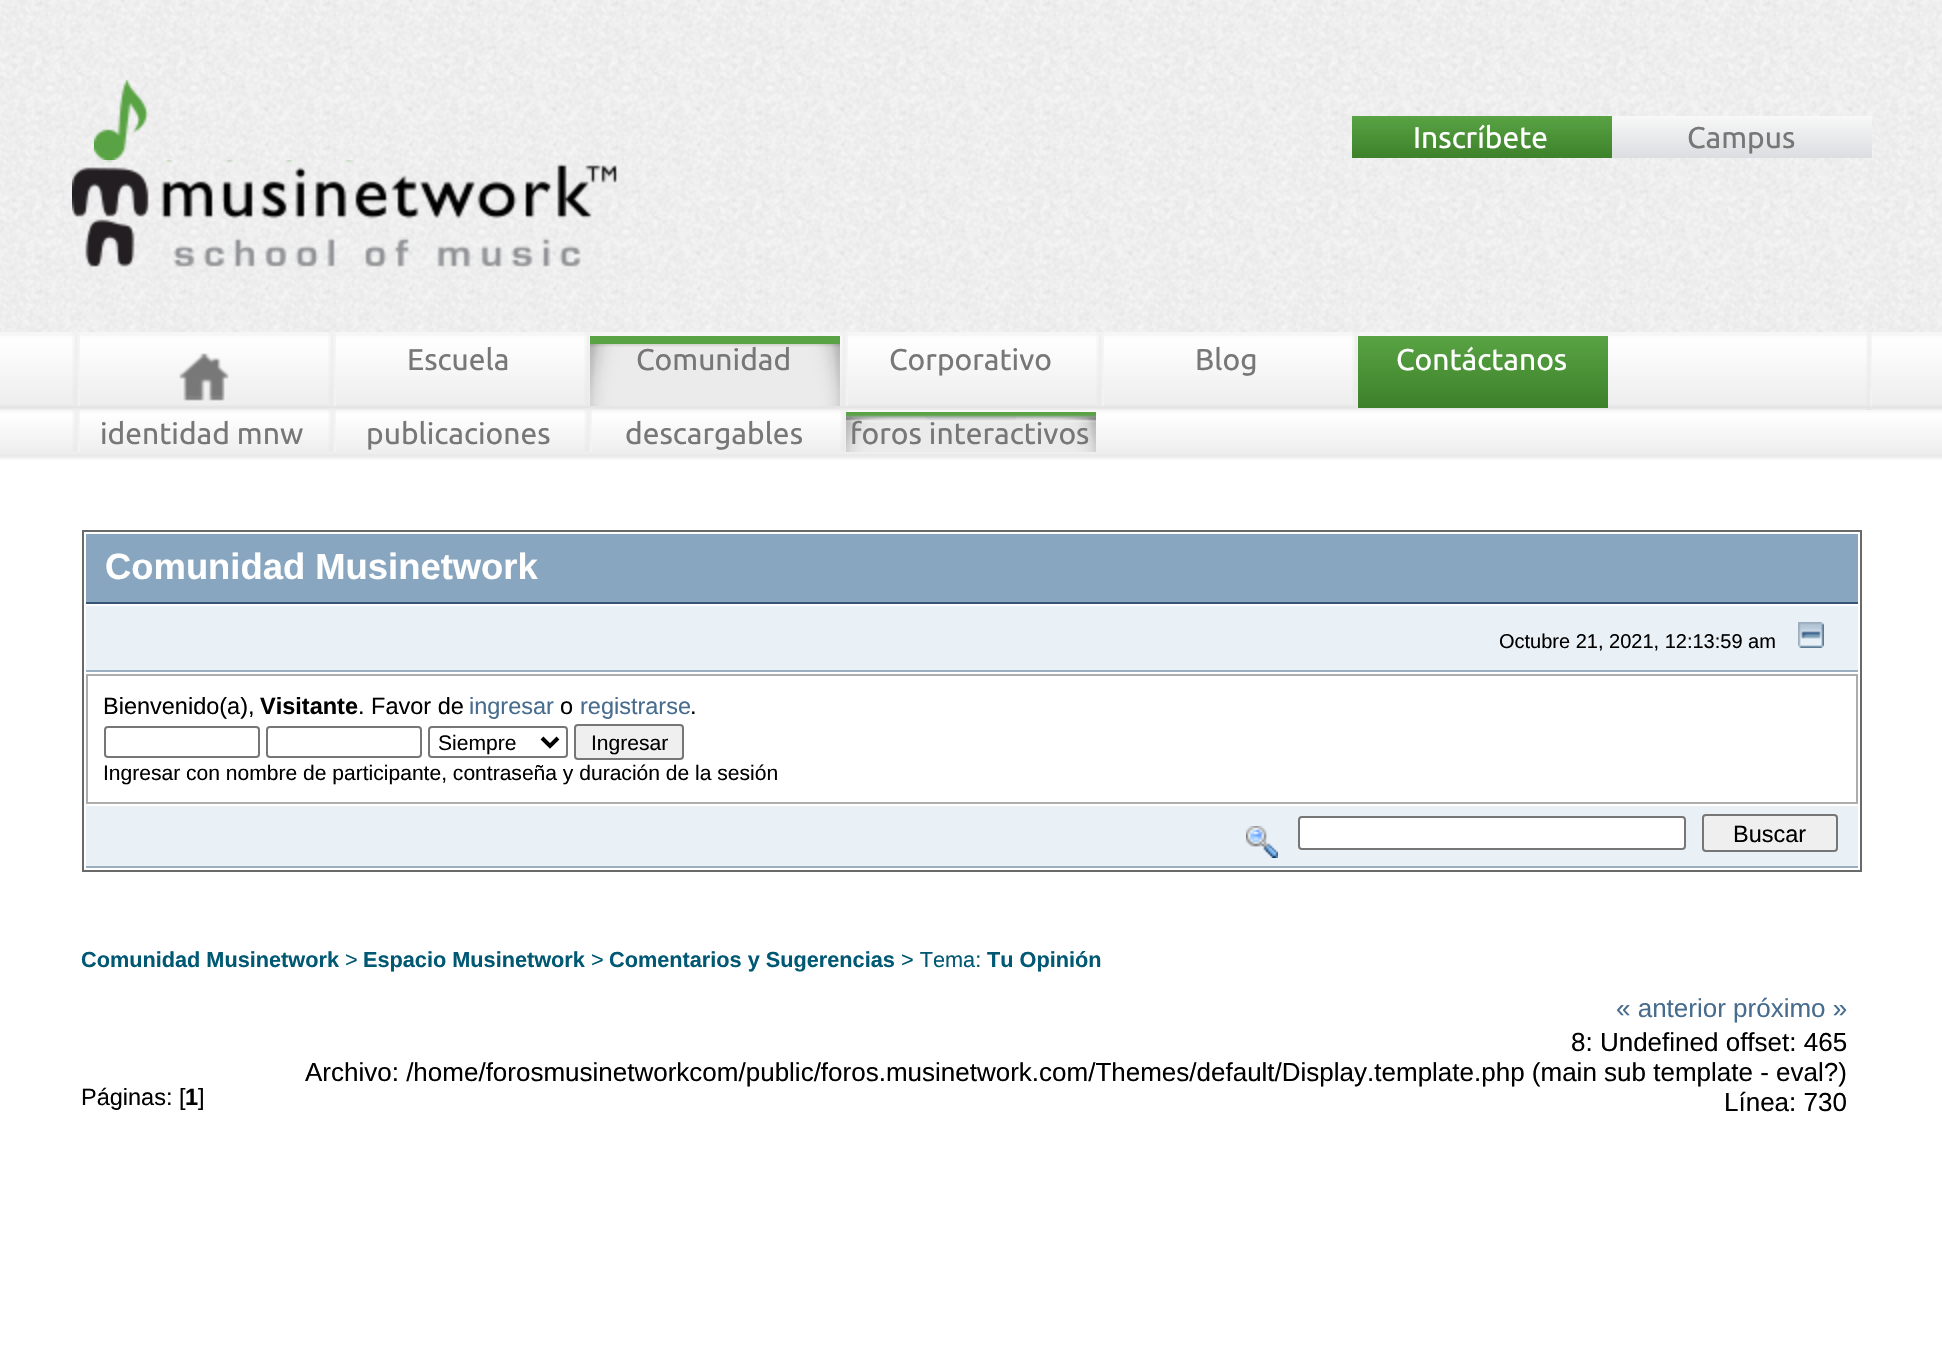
void draw(SkCanvas* c) {
SkPaint p;
p.setAntiAlias(true);
auto F=[&](const char* family, int weight, float size, bool italic = false){SkFontStyle style(weight, SkFontStyle::kNormal_Width,italic ? SkFontStyle::kItalic_Slant : SkFontStyle::kUpright_Slant);SkFont result(fontMgr->matchFamilyStyle(family, style), size);result.setSubpixel(true);return result;};
auto T=[&](const char* s, float x, float y, const SkFont& font){c->drawString(s, x, y, font, p);};
auto R=[&](float x, float y, float w, float h){c->drawRect(SkRect::MakeXYWH(x, y, w, h), p);};
auto I=[&](const char* path, float x, float y, float w, float h){auto image = SkImages::DeferredFromEncodedData(SkData::MakeFromFileName(path));c->drawImageRect(image, SkRect::MakeXYWH(x, y, w, h), SkSamplingOptions());};
auto P=[&](const char* data, bool evenOdd = false){SkPath result = *SkParsePath::FromSVGString(data);if (evenOdd) result.setFillType(SkPathFillType::kEvenOdd);return result;};
c->clear(0xffffffff);
I("1.png",0,0,1942,332);
I("2.png",94,80,55,80);
I("3.png",72,160,545,107);
{
const SkColor colors[] = {0xff59a344,0xff3d812a};
const float stops[] = {0,1};
const SkPoint ends[] = {{1482,116}, {1482,158}};
p.setShader(SkGradientShader::MakeLinear(ends, colors, stops, 2, SkTileMode::kClamp));
p.setAlpha(255);
}
R(1352,116,260,42);
auto f1 = F("Ubuntu",400,30);
p.setShader(nullptr);
p.setColor(0xffffffff);
T("Inscríbete",1413,148,f1);
{
const SkColor colors[] = {0xfff8f8f8,0xffdbdde0};
const float stops[] = {0,1};
const SkPoint ends[] = {{1742,116}, {1742,158}};
p.setShader(SkGradientShader::MakeLinear(ends, colors, stops, 2, SkTileMode::kClamp));
p.setAlpha(255);
}
R(1612,116,260,42);
p.setShader(nullptr);
p.setColor(0xff777777);
T("Campus",1687,148,f1);
I("4.png",0,332,1942,78);
I("5.png",1866,332,6,78);
I("6.png",72,332,8,74);
I("7.png",179,353,50,48);
I("6.png",328,332,8,74);
T("Escuela",407,370,f1);
I("6.png",584,332,8,74);
p.setColor(0xff59a344);
R(590,336,250,8);
I("8.png",590,344,250,62);
p.setColor(0xff777777);
T("Comunidad",636,370,f1);
I("6.png",840,332,8,74);
T("Corporativo",889,370,f1);
I("6.png",1096,332,8,74);
T("Blog",1195,370,f1);
I("9.png",1352,332,8,75);
{
const SkColor colors[] = {0xff59a344,0xff3d812a};
const float stops[] = {0,1};
const SkPoint ends[] = {{1483,336}, {1483,408}};
p.setShader(SkGradientShader::MakeLinear(ends, colors, stops, 2, SkTileMode::kClamp));
p.setAlpha(255);
}
R(1358,336,250,72);
p.setShader(nullptr);
p.setColor(0xffffffff);
T("Contáctanos",1396,370,f1);
I("10.png",0,410,1942,50);
I("11.png",72,410,8,42);
p.setColor(0xff777777);
T("identidad mnw",100,444,f1);
I("11.png",328,410,8,42);
T("publicaciones",366,444,f1);
I("11.png",584,410,8,42);
T("descargables",625,444,f1);
I("11.png",840,410,8,42);
p.setColor(0xff59a344);
R(846,412,250,7);
I("12.png",846,415,250,37);
p.setColor(0xff777777);
T("foros interactivos",850,444,f1);
p.setStroke(true);
p.setStrokeWidth(2);
p.setColor(0xff696969);
c->drawRect(SkRect::MakeXYWH(83,531,1778,340),p);
p.setStroke(false);
p.setColor(0xff88a6c0);
R(86,534,1772,68);
p.setColor(0xff375576);
R(86,602,1772,2);
auto f2 = F("Liberation Sans",700,36.4);
p.setColor(0xffffffff);
T("Comunidad Musinetwork",105,579,f2);
p.setColor(0xffe9f0f6);
R(86,606,1772,64);
p.setColor(0xff9baebf);
R(86,670,1772,2);
auto f3 = F("Liberation Sans",400,20);
p.setColor(0xff000000);
T("Octubre 21, 2021, 12:13:59 am",1499,648,f3);
I("13.png",1798,622,26,26);
p.setColor(0xffadadad);
R(86,674,1772,130);
p.setColor(0xffffffff);
R(88,676,1768,126);
auto f4 = F("Liberation Sans",400,23.5);
p.setColor(0xff000000);
T("Bienvenido(a),",103,714,f4);
auto f5 = F("Liberation Sans",700,23.5);
T("Visitante",260,714,f5);
T(". Favor de",358,714,f4);
p.setColor(0xff476c8e);
T("ingresar",469,714,f4);
p.setColor(0xff000000);
T("o",560,714,f4);
p.setColor(0xff476c8e);
T("registrarse",580,714,f4);
p.setColor(0xff000000);
T(".",690,714,f4);
p.setStroke(true);
p.setColor(0xff767676);
c->drawRoundRect(SkRect::MakeXYWH(105,727,154,30),3,3,p);
c->drawRoundRect(SkRect::MakeXYWH(267,727,154,30),3,3,p);
c->drawRoundRect(SkRect::MakeXYWH(429,727,138,30),3,3,p);
p.setStrokeWidth(4);
p.setColor(0xff000000);
c->drawPath(P("M542 738l8 8l8-8"),p);
auto f6 = F("Liberation Sans",400,21.05);
p.setStroke(false);
T("Siempre",438,750,f6);
p.setColor(0xffefefef);
c->drawRoundRect(SkRect::MakeXYWH(575,725,108,34),3,3,p);
p.setStroke(true);
p.setStrokeWidth(2);
p.setColor(0xff767676);
c->drawRoundRect(SkRect::MakeXYWH(575,725,108,34),3,3,p);
p.setStroke(false);
p.setColor(0xff000000);
T("Ingresar",591,750,f6);
T("Ingresar con nombre de participante, contraseña y duración de la sesión",103,780,f6);
p.setColor(0xffe9f0f6);
R(86,806,1772,60);
p.setColor(0xff9baebf);
R(86,866,1772,2);
I("14.png",1246,826,32,32);
p.setColor(0xffffffff);
c->drawRoundRect(SkRect::MakeXYWH(1299,817,386,32),3,3,p);
p.setStroke(true);
p.setColor(0xff767676);
c->drawRoundRect(SkRect::MakeXYWH(1299,817,386,32),3,3,p);
p.setStroke(false);
p.setColor(0xffefefef);
c->drawRoundRect(SkRect::MakeXYWH(1703,815,134,36),3,3,p);
p.setStroke(true);
p.setColor(0xff767676);
c->drawRoundRect(SkRect::MakeXYWH(1703,815,134,36),3,3,p);
p.setStroke(false);
p.setColor(0xff000000);
T("Buscar",1733,842,f4);
auto f7 = F("Liberation Sans",700,21.7);
p.setColor(0xff005873);
T("Comunidad Musinetwork",81,967,f7);
auto f8 = F("Liberation Sans",400,21.7);
T(">",345,967,f8);
T("Espacio Musinetwork",363,967,f7);
T(">",591,967,f8);
T("Comentarios y Sugerencias",609,967,f7);
T("> Tema:",901,967,f8);
T("Tu Opinión",987,967,f7);
p.setColor(0xff000000);
T("Páginas: [",81,1105,f4);
T("1",185,1105,f5);
T("]",198,1105,f4);
auto f9 = F("Liberation Sans",400,26);
p.setColor(0xff476c8e);
T("« anterior próximo »",1616,1017,f9);
p.setColor(0xff000000);
T("8: Undefined offset: 465",1571,1051,f9);
T("Archivo: /home/forosmusinetworkcom/public/foros.musinetwork.com/Themes/default/Display.template.php (main sub template - eval?)",305,1081,f9);
T("Línea: 730",1724,1111,f9);
}
